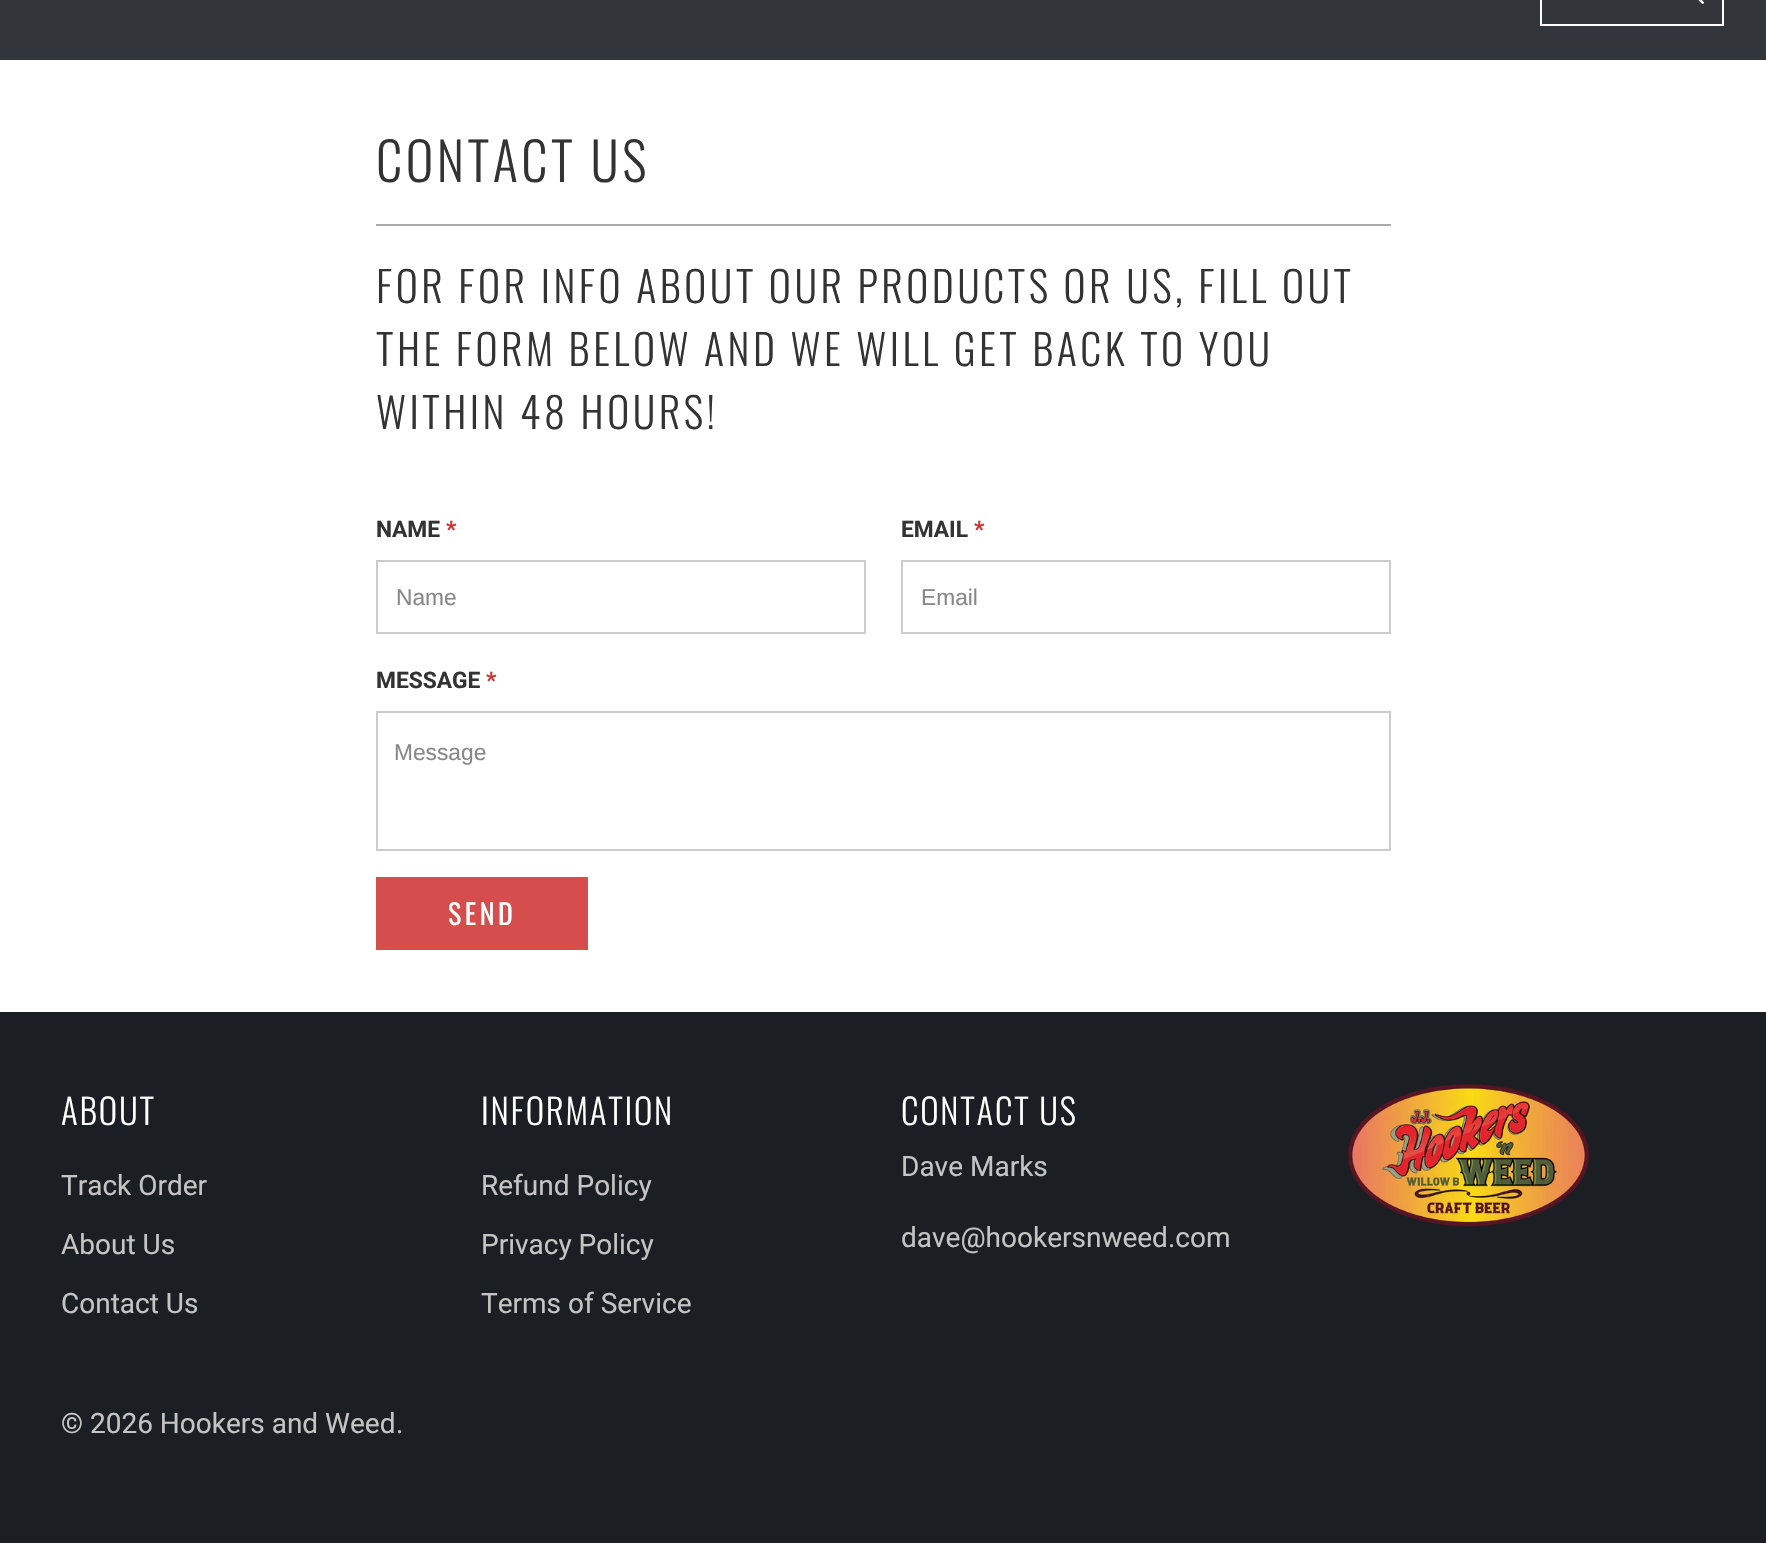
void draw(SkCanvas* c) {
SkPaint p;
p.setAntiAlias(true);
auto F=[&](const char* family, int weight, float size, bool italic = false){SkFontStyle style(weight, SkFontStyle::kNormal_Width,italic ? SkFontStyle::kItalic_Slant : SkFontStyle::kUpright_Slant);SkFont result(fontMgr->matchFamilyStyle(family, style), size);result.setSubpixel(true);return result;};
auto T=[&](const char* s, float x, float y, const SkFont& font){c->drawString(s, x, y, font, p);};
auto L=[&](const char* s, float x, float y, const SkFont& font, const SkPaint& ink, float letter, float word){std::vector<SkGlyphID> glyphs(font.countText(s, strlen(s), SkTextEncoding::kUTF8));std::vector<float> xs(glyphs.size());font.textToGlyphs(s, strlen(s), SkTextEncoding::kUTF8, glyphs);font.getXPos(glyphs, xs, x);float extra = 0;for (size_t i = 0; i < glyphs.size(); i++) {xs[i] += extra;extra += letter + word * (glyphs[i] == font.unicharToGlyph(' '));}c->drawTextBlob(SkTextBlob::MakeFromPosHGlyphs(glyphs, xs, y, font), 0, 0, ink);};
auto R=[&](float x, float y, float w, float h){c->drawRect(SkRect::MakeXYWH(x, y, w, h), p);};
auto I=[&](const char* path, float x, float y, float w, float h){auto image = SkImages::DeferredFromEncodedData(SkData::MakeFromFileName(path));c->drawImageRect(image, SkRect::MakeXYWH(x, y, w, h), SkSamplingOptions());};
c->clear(0xffffffff);
p.setColor(0xff323539);
R(0,0,1766,60);
p.setStroke(true);
p.setStrokeWidth(2);
p.setColor(0xffffffff);
c->drawRect(SkRect::MakeXYWH(1541,-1,182,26),p);
I("1.png",1698,0,6,4);
auto f1 = F("Oswald",300,52.5);
p.setStroke(false);
p.setColor(0xff333333);
L("CONTACT US",376,182,f1,p,3.5,0);
p.setColor(0xffaaaaaa);
R(376,224,1015,2);
auto f2 = F("Oswald",300,42);
p.setColor(0xff333333);
L("FOR FOR INFO ABOUT OUR PRODUCTS OR US, FILL OUT",376,303,f2,p,3.5,0);
L("THE FORM BELOW AND WE WILL GET BACK TO YOU",376,366,f2,p,3.5,0);
L("WITHIN 48 HOURS!",376,429,f2,p,3.5,0);
auto f3 = F("Roboto",700,22.75);
T("NAME",376,537,f3);
p.setColor(0xffcc3333);
T("*",446,537,f3);
p.setStroke(true);
p.setColor(0xffcccccc);
c->drawRect(SkRect::MakeXYWH(377,561,488,72),p);
auto f4 = F("Liberation Sans",400,22.75);
p.setStroke(false);
p.setColor(0xff888888);
T("Name",396,605,f4);
p.setColor(0xff333333);
T("EMAIL",901,537,f3);
p.setColor(0xffcc3333);
T("*",974,537,f3);
p.setStroke(true);
p.setColor(0xffcccccc);
c->drawRect(SkRect::MakeXYWH(902,561,488,72),p);
p.setStroke(false);
p.setColor(0xff888888);
T("Email",921,605,f4);
p.setColor(0xff333333);
T("MESSAGE",376,688,f3);
p.setColor(0xffcc3333);
T("*",486,688,f3);
p.setStroke(true);
p.setColor(0xffcccccc);
c->drawRect(SkRect::MakeXYWH(377,712,1013,138),p);
p.setStroke(false);
p.setColor(0xff888888);
T("Message",394,760,f4);
p.setColor(0xffd54d4d);
R(376,877,212,73);
auto f5 = F("Oswald",400,28);
p.setColor(0xffffffff);
L("SEND",448,925,f5,p,3.5,0);
p.setColor(0xff1b1f23);
R(0,1012,1766,531);
auto f6 = F("Oswald",300,35);
p.setColor(0xffffffff);
L("ABOUT",61,1125,f6,p,1.75,0);
auto f7 = F("Roboto",400,28);
p.setColor(0xffc4c4c4);
T("Track Order",61,1195,f7);
T("About Us",61,1254,f7);
T("Contact Us",61,1313,f7);
p.setColor(0xffffffff);
L("INFORMATION",481,1125,f6,p,1.75,0);
p.setColor(0xffc4c4c4);
T("Refund Policy",481,1195,f7);
T("Privacy Policy",481,1254,f7);
T("Terms of Service",481,1313,f7);
p.setColor(0xffffffff);
L("CONTACT US",901,1125,f6,p,1.75,0);
p.setColor(0xffc4c4c4);
T("Dave Marks",901,1176,f7);
T("dave@hookersnweed.com",901,1247,f7);
I("2.png",1348,1084,241,143);
T("© 2026 Hookers and Weed",61,1433,f7);
T(".",396,1433,f7);
}
